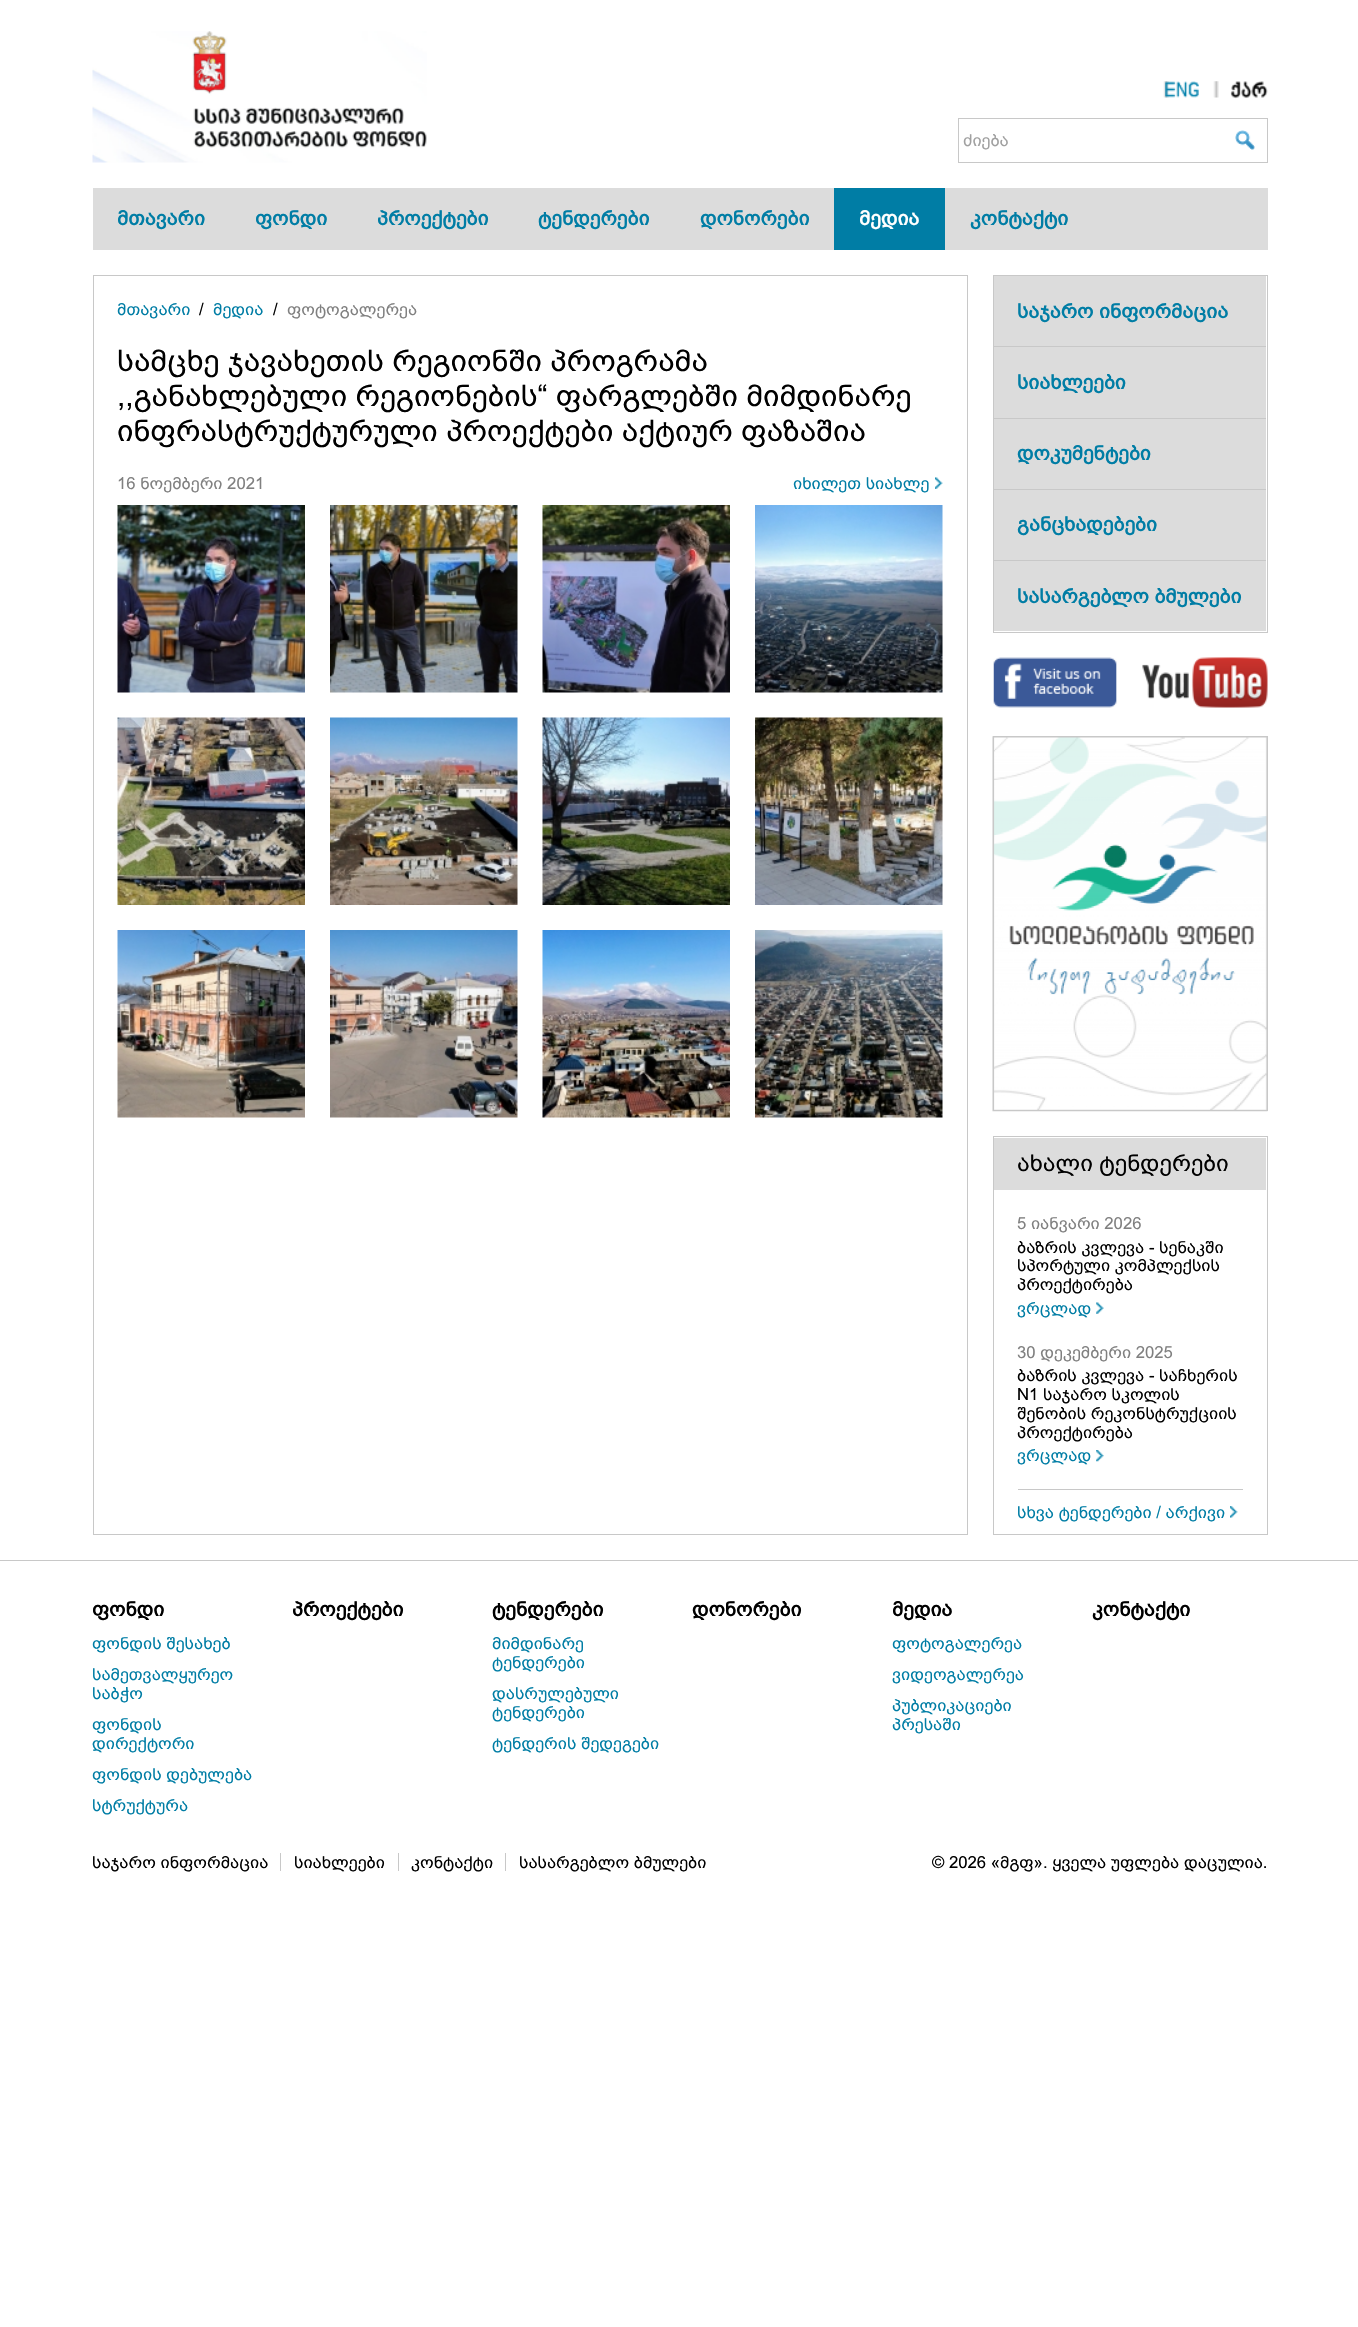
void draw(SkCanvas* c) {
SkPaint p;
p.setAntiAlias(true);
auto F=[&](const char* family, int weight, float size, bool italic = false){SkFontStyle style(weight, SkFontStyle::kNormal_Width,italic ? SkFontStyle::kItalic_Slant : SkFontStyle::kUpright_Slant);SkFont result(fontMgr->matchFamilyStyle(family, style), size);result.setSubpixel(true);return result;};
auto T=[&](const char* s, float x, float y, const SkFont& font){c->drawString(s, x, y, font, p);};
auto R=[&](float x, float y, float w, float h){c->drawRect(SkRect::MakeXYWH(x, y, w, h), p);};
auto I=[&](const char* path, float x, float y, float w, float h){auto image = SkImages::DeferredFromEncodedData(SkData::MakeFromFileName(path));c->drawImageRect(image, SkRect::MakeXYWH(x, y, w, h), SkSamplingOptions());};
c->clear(0xffffffff);
I("1.png",92,31,335,132);
I("2.png",1163,81,6,17);
I("3.png",1164,81,35,17);
I("4.png",1213,81,6,17);
I("5.png",1230,81,38,18);
p.setStroke(true);
p.setStrokeWidth(1);
p.setColor(0xffc8c8c8);
c->drawRect(SkRect::MakeXYWH(958.5,118.5,309,44),p);
auto f1 = F("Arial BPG",400,16.7);
p.setStroke(false);
p.setColor(0xffa0a0a0);
T("ძიება",963,146,f1);
I("6.png",1235,130,20,20);
p.setColor(0xffdcdcdc);
R(93,188,1175,62);
auto f2 = F("Arial BPG",700,20);
p.setColor(0xff007da5);
T("მთავარი",117,225,f2);
T("ფონდი",255,225,f2);
T("პროექტები",377,225,f2);
T("ტენდერები",538,225,f2);
T("დონორები",700,225,f2);
R(834,188,111,62);
p.setColor(0xffffffff);
T("მედია",859,225,f2);
p.setColor(0xff007da5);
T("კონტაქტი",970,225,f2);
p.setStroke(true);
p.setColor(0xffc8c8c8);
c->drawRect(SkRect::MakeXYWH(93.5,275.5,874,1259),p);
p.setStroke(false);
p.setColor(0xff007da5);
T("მთავარი",117,315,f1);
p.setColor(0xff000000);
T("/",199,315,f1);
p.setColor(0xff007da5);
T("მედია",213,315,f1);
p.setColor(0xff000000);
T("/",273,315,f1);
p.setColor(0xff808080);
T("ფოტოგალერეა",287,315,f1);
auto f3 = F("Arial BPG",400,30);
p.setColor(0xff000000);
T("სამცხე ჯავახეთის რეგიონში პროგრამა",117,371,f3);
T(",,განახლებული რეგიონების“ ფარგლებში მიმდინარე",117,406,f3);
T("ინფრასტრუქტურული პროექტები აქტიურ ფაზაშია",117,441,f3);
p.setColor(0xff808080);
T("16 ნოემბერი 2021",117,489,f1);
p.setColor(0xff007da5);
T("იხილეთ სიახლე",793,489,f1);
I("7.png",935,477,8,12);
I("8.png",117,505,188,188);
I("9.png",330,505,188,188);
I("10.png",542,505,188,188);
I("11.png",755,505,188,188);
I("12.png",117,717,188,188);
I("13.png",330,717,188,188);
I("14.png",542,717,188,188);
I("15.png",755,717,188,188);
I("16.png",117,930,188,188);
I("17.png",330,930,188,188);
I("18.png",542,930,188,188);
I("19.png",755,930,188,188);
p.setStroke(true);
p.setColor(0xffc8c8c8);
c->drawRect(SkRect::MakeXYWH(993.5,275.5,274,357),p);
p.setStroke(false);
p.setColor(0xffdcdcdc);
R(994,276,272,355);
p.setColor(0xff007da5);
T("საჯარო ინფორმაცია",1017,318,f2);
p.setColor(0xffc8c8c8);
R(994,346,272,1);
p.setColor(0xff007da5);
T("სიახლეები",1017,389,f2);
p.setColor(0xffc8c8c8);
R(994,418,272,1);
p.setColor(0xff007da5);
T("დოკუმენტები",1017,460,f2);
p.setColor(0xffc8c8c8);
R(994,489,272,1);
p.setColor(0xff007da5);
T("განცხადებები",1017,531,f2);
p.setColor(0xffc8c8c8);
R(994,560,272,1);
p.setColor(0xff007da5);
T("სასარგებლო ბმულები",1017,603,f2);
I("20.png",993,657,124,51);
I("21.png",1142,657,126,51);
I("22.png",992,736,276,376);
p.setStroke(true);
p.setColor(0xffc8c8c8);
c->drawRect(SkRect::MakeXYWH(993.5,736.5,274,374),p);
c->drawRect(SkRect::MakeXYWH(993.5,1136.5,274,398),p);
p.setStroke(false);
p.setColor(0xffdcdcdc);
R(994,1138,272,52);
auto f4 = F("Arial BPG",400,23.25);
p.setColor(0xff000000);
T("ახალი ტენდერები",1017,1171,f4);
p.setColor(0xff808080);
T("5 იანვარი 2026",1017,1229,f1);
p.setColor(0xff000000);
T("ბაზრის კვლევა - სენაკში",1017,1253,f1);
T("სპორტული კომპლექსის",1017,1271,f1);
T("პროექტირება",1017,1290,f1);
p.setColor(0xff007da5);
T("ვრცლად",1017,1314,f1);
I("23.png",1096,1302,8,12);
p.setColor(0xff808080);
T("30 დეკემბერი 2025",1017,1358,f1);
p.setColor(0xff000000);
T("ბაზრის კვლევა - საჩხერის",1017,1381,f1);
T("N1 საჯარო სკოლის",1017,1400,f1);
T("შენობის რეკონსტრუქციის",1017,1419,f1);
T("პროექტირება",1017,1438,f1);
p.setColor(0xff007da5);
T("ვრცლად",1017,1461,f1);
I("24.png",1096,1450,8,12);
p.setColor(0xffc8c8c8);
R(1018,1489,225,1);
p.setColor(0xff007da5);
T("სხვა ტენდერები / არქივი",1017,1518,f1);
I("25.png",1230,1506,8,12);
p.setColor(0xffc8c8c8);
R(0,1560,1358,1);
p.setColor(0xff000000);
T("ფონდი",92,1616,f2);
p.setColor(0xff007da5);
T("ფონდის შესახებ",92,1649,f1);
T("სამეთვალყურეო",92,1680,f1);
T("საბჭო",92,1699,f1);
T("ფონდის",92,1730,f1);
T("დირექტორი",92,1749,f1);
T("ფონდის დებულება",92,1780,f1);
T("სტრუქტურა",92,1811,f1);
p.setColor(0xff000000);
T("პროექტები",292,1616,f2);
T("ტენდერები",492,1616,f2);
p.setColor(0xff007da5);
T("მიმდინარე",492,1649,f1);
T("ტენდერები",492,1668,f1);
T("დასრულებული",492,1699,f1);
T("ტენდერები",492,1718,f1);
T("ტენდერის შედეგები",492,1749,f1);
p.setColor(0xff000000);
T("დონორები",692,1616,f2);
T("მედია",892,1616,f2);
p.setColor(0xff007da5);
T("ფოტოგალერეა",892,1649,f1);
T("ვიდეოგალერეა",892,1680,f1);
T("პუბლიკაციები",892,1711,f1);
T("პრესაში",892,1730,f1);
p.setColor(0xff000000);
T("კონტაქტი",1092,1616,f2);
T("საჯარო ინფორმაცია",92,1868,f1);
p.setColor(0xffc8c8c8);
R(280,1853,1,18);
p.setColor(0xff000000);
T("სიახლეები",294,1868,f1);
p.setColor(0xffc8c8c8);
R(398,1853,1,18);
p.setColor(0xff000000);
T("კონტაქტი",411,1868,f1);
p.setColor(0xffc8c8c8);
R(505,1853,1,18);
p.setColor(0xff000000);
T("სასარგებლო ბმულები",519,1868,f1);
T("© 2026 «მგფ». ყველა უფლება დაცულია.",932,1868,f1);
}
